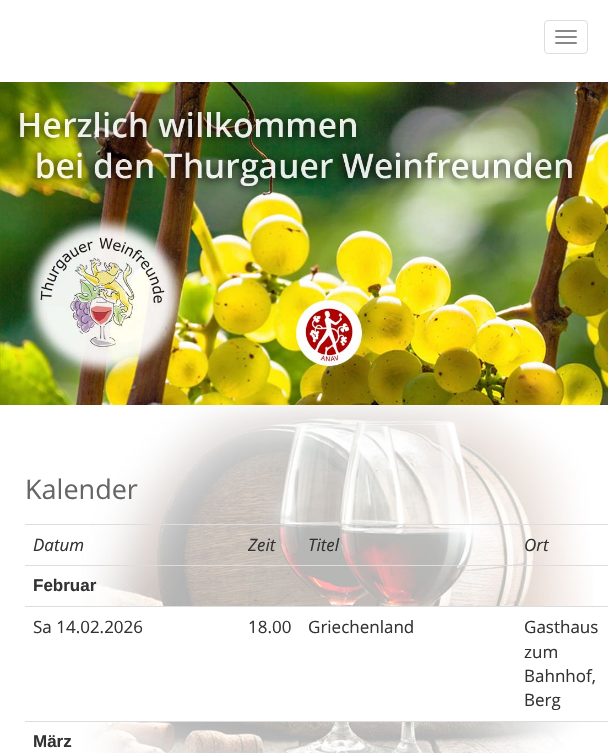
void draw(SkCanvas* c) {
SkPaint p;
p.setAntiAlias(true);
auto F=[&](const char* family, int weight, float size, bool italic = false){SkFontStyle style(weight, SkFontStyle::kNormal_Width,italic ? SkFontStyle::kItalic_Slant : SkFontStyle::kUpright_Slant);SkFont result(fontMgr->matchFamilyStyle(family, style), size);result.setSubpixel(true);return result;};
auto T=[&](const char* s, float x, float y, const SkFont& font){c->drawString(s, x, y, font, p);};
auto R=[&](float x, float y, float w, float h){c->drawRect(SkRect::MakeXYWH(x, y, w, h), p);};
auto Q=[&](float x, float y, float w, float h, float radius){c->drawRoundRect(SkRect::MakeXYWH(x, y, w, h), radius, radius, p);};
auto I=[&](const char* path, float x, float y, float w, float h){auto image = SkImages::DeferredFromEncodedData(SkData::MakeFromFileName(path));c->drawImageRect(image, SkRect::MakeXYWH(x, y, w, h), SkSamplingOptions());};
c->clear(0xffffffff);
p.setStroke(true);
p.setStrokeWidth(1);
p.setColor(0xffdddddd);
c->drawRoundRect(SkRect::MakeXYWH(544.5,20.5,43,33),3.5,3.5,p);
p.setStroke(false);
p.setColor(0xff888888);
Q(555,30,22,2,1);
Q(555,36,22,2,1);
Q(555,42,22,2,1);
I("1.png",0,82,608,323);
I("2.png",81,405,512,348);
auto f1 = F("Open Sans",400,27);
p.setColor(0xff666666);
T("Kalender",25,499,f1);
auto f2 = F("Open Sans",400,17,true);
p.setColor(0xff333333);
T("Datum",33,551,f2);
T("Zeit",248,551,f2);
T("Titel",308,551,f2);
p.setColor(0xffdddddd);
R(25,524,583,1);
p.setColor(0xff333333);
T("Ort",524,551,f2);
p.setColor(0xffdddddd);
R(25,565,583,1);
auto f3 = F("Liberation Sans",700,17);
p.setColor(0xff333333);
T("Februar",33,591,f3);
p.setColor(0xffffffff);
R(81,607,512,114);
auto f4 = F("Open Sans",400,17);
p.setColor(0xff333333);
T("Sa 14.02.2026",33,633,f4);
T("18.00",248,633,f4);
T("Griechenland",308,633,f4);
p.setColor(0xffdddddd);
R(25,606,583,1);
p.setColor(0xff333333);
T("Gasthaus",524,633,f4);
T("zum",524,658,f4);
T("Bahnhof,",524,682,f4);
T("Berg",524,706,f4);
p.setColor(0xffdddddd);
R(25,721,583,1);
p.setColor(0xff333333);
T("März",33,747,f3);
}
